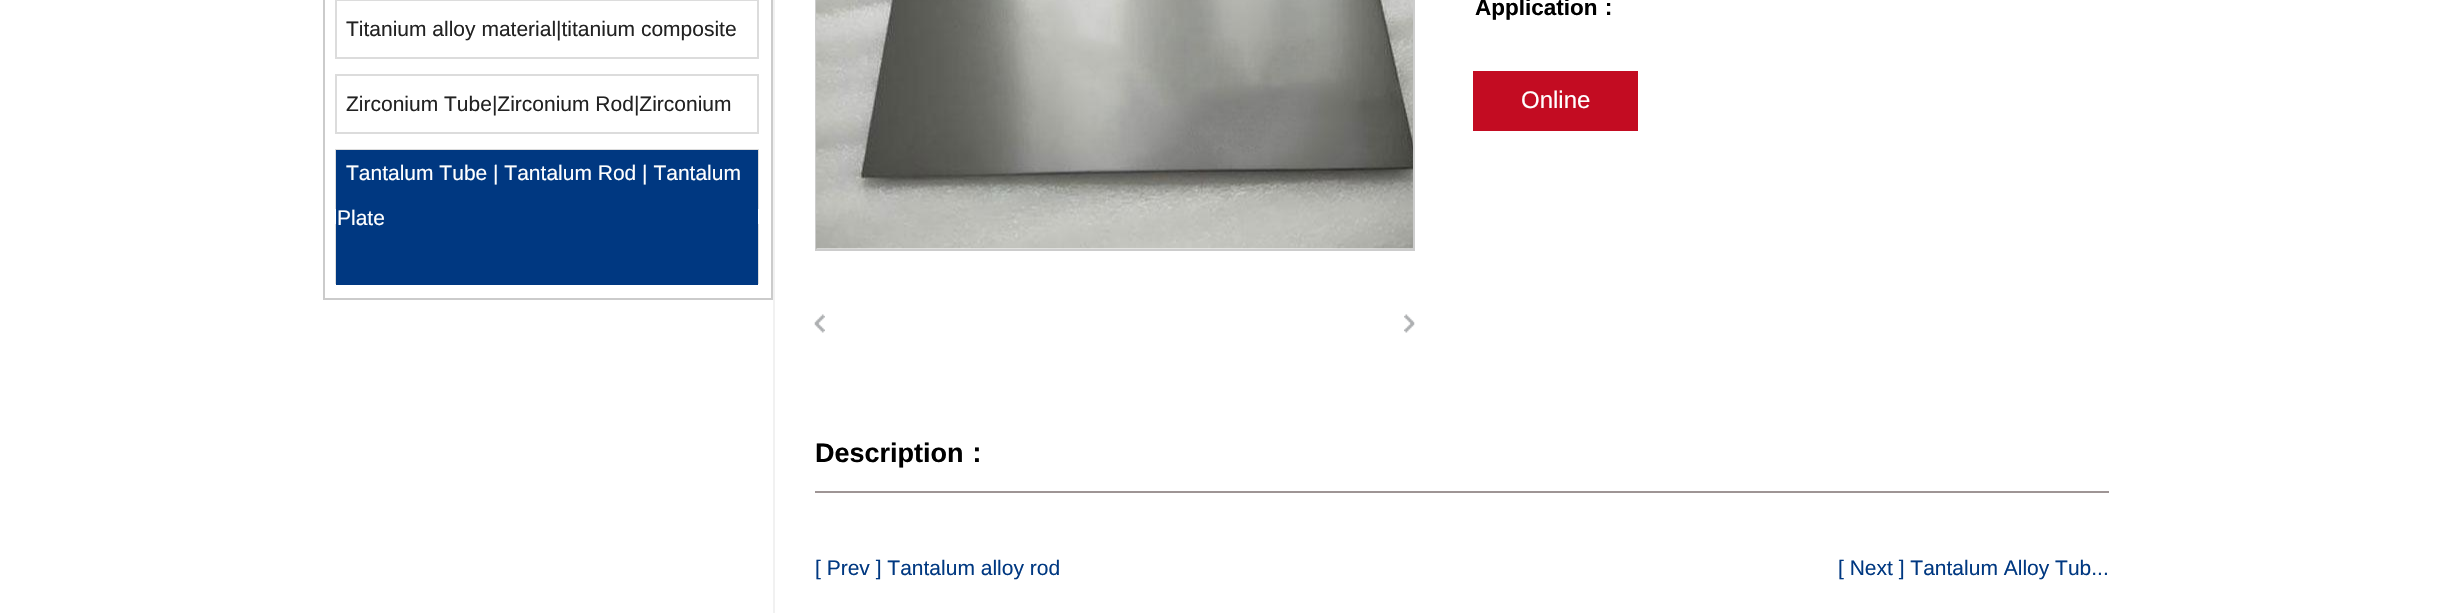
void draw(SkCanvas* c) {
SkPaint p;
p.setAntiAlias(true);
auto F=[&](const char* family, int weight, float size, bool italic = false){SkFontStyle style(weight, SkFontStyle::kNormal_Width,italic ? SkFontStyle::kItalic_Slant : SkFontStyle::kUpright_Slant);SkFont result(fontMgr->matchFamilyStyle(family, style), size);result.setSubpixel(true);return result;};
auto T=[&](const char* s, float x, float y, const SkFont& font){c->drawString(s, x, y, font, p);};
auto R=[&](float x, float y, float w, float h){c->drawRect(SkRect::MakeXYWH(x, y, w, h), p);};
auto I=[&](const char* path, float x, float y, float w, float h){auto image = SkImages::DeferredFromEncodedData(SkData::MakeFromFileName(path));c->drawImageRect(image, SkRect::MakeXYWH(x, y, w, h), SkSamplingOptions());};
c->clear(0xffffffff);
p.setStroke(true);
p.setStrokeWidth(2);
p.setColor(0xffcbcbcb);
c->drawRect(SkRect::MakeXYWH(324,-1,448,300),p);
p.setColor(0xffdcdcdc);
c->drawRect(SkRect::MakeXYWH(336,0,422,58),p);
auto f1 = F("Liberation Sans",400,21);
p.setStroke(false);
p.setColor(0xff222222);
T("Titanium alloy material|titanium composite",346,36,f1);
p.setStroke(true);
p.setColor(0xffdcdcdc);
c->drawRect(SkRect::MakeXYWH(336,75,422,58),p);
p.setStroke(false);
p.setColor(0xff222222);
T("Zirconium Tube|Zirconium Rod|Zirconium",346,111,f1);
p.setStroke(true);
p.setColor(0xffdcdcdc);
c->drawRect(SkRect::MakeXYWH(336,150,422,58),p);
c->drawRect(SkRect::MakeXYWH(336,225,422,58),p);
p.setStroke(false);
p.setColor(0xff003881);
R(336,150,422,135);
p.setColor(0xffffffff);
T("Tantalum Tube | Tantalum Rod | Tantalum",346,180,f1);
T("Plate",337,225,f1);
p.setColor(0xfff1f1f1);
R(773,0,2,613);
p.setStroke(true);
p.setColor(0xffcccccc);
c->drawRect(SkRect::MakeXYWH(816,-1,598,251),p);
I("1.png",816,0,597,249);
I("2.png",814,314,11,19);
I("3.png",1404,314,11,19);
auto f2 = F("Liberation Sans",700,22.5);
p.setStroke(false);
p.setColor(0xff000000);
T("Application",1475,15,f2);
auto f3 = F("WenQuanYi Zen Hei",700,22.5);
T("：",1597,15,f3);
p.setColor(0xffc30c22);
R(1473,71,165,60);
auto f4 = F("Liberation Sans",400,24);
p.setColor(0xffffffff);
T("Online",1521,108,f4);
p.setColor(0xff9e9595);
R(815,491,1294,2);
auto f5 = F("Liberation Sans",700,27);
p.setColor(0xff000000);
T("Description",815,462,f5);
auto f6 = F("WenQuanYi Zen Hei",700,27);
T("：",963,462,f6);
p.setColor(0xff003881);
T("[ Prev ] Tantalum alloy rod",815,575,f1);
T("[ Next ] Tantalum Alloy Tub...",1838,575,f1);
}
